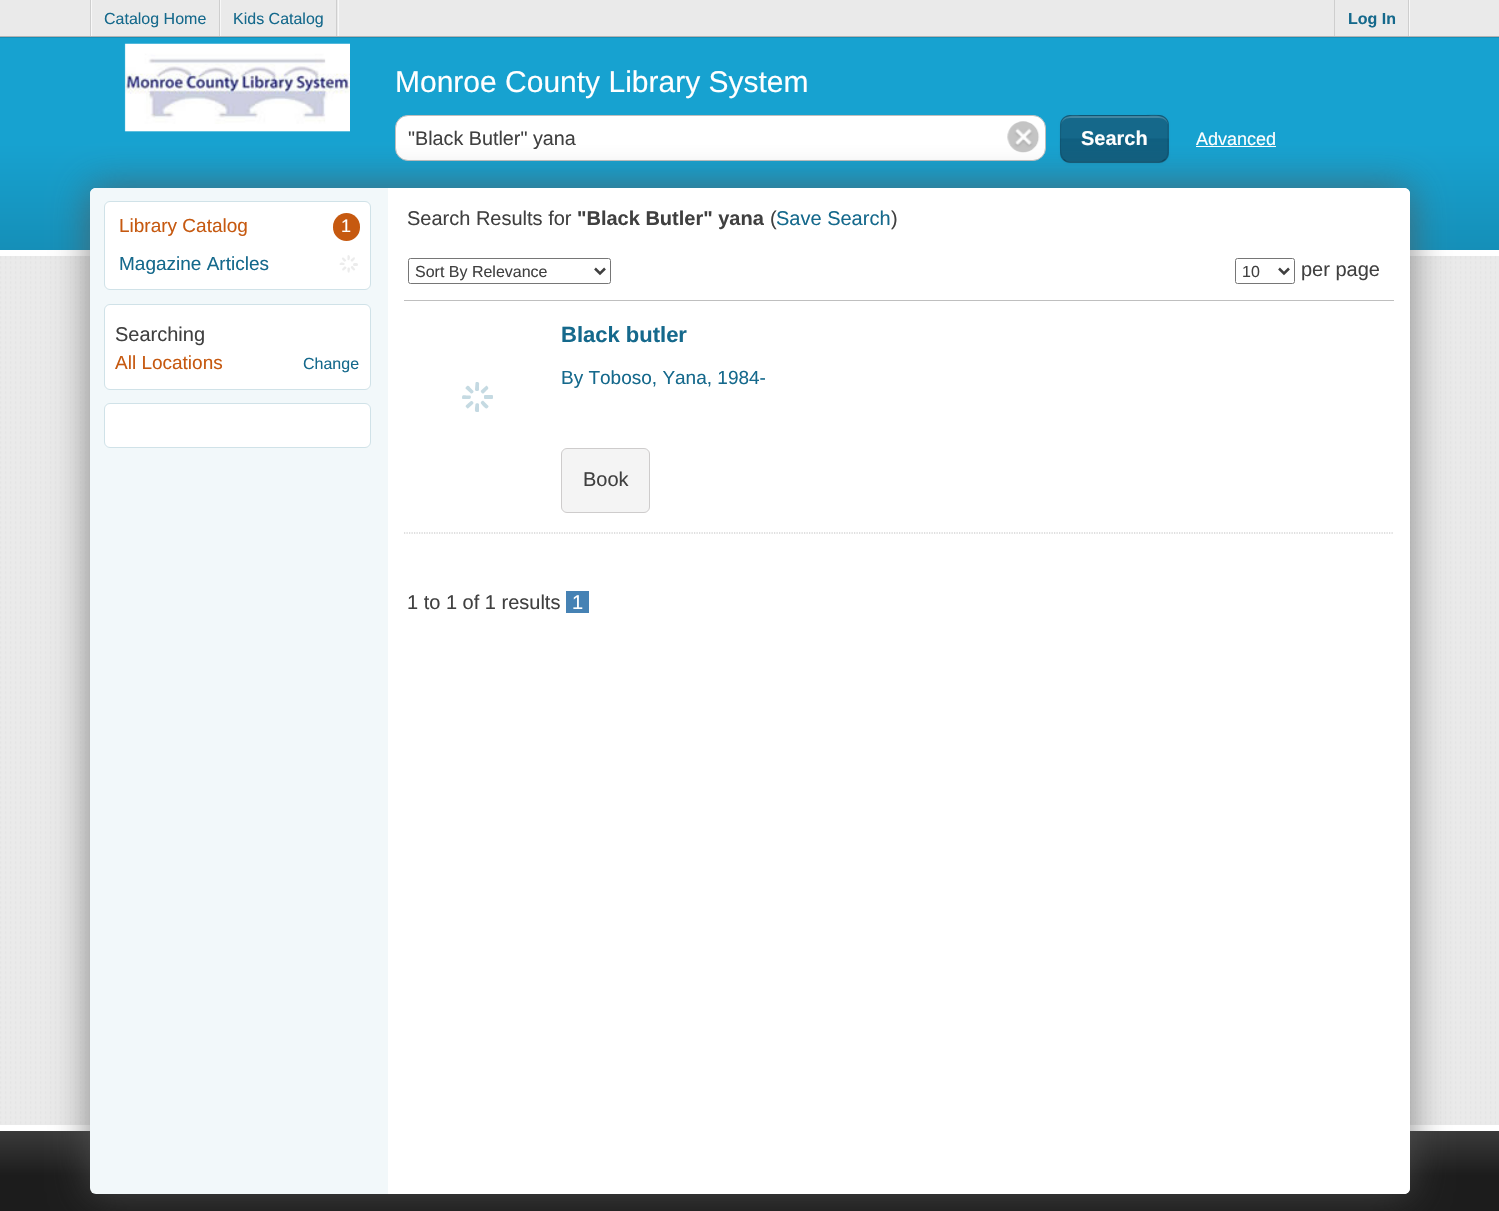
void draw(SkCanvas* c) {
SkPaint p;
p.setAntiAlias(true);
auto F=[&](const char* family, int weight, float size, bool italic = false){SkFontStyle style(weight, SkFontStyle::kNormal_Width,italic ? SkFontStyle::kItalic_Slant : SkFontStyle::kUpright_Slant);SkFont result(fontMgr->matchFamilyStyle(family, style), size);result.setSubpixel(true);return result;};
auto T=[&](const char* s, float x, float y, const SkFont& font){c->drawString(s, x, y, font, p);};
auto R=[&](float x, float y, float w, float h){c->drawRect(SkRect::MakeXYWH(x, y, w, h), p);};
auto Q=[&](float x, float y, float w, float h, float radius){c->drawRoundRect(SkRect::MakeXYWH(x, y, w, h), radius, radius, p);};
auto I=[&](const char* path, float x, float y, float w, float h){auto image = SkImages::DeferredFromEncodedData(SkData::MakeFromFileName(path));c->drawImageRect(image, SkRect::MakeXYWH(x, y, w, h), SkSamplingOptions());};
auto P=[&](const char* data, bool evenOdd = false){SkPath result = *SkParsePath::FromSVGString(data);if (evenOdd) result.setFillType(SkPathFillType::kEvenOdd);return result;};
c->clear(0xffeaeaea);
p.setColor(0xffcecece);
R(90,0,1,36);
p.setColor(0xfff8f8f8);
R(220,0,1,36);
R(91,0,1,36);
p.setColor(0xffcecece);
R(219,0,1,36);
auto f1 = F("Liberation Sans",400,16);
p.setColor(0xff15698c);
T("Catalog Home",104,24,f1);
p.setColor(0xfff8f8f8);
R(338,0,1,36);
p.setColor(0xffcecece);
R(336,0,1,36);
p.setColor(0xff15698c);
T("Kids Catalog",233,24,f1);
p.setColor(0xffcecece);
R(1334,0,1,36);
p.setColor(0xfff8f8f8);
R(1409,0,1,36);
p.setColor(0xffcecece);
R(1408,0,1,36);
auto f2 = F("Liberation Sans",700,16);
p.setColor(0xff15698c);
T("Log In",1348,24,f2);
p.setColor(0xff158fb8);
R(0,37,1499,1);
{
const SkColor colors[] = {0xff17a2d0,0xff158fb8};
const float stops[] = {.5,1};
const SkPoint ends[] = {{750,37}, {750,250}};
p.setShader(SkGradientShader::MakeLinear(ends, colors, stops, 2, SkTileMode::kClamp));
p.setAlpha(255);
}
R(0,38,1499,212);
p.setShader(nullptr);
p.setColor(0xffb4b4b4);
R(0,36,1499,1);
p.setColor(0xffffffff);
R(0,250,1499,6);
I("1.png",124,43,226,89);
auto f3 = F("Liberation Sans",400,30);
T("Monroe County Library System",395,92,f3);
c->drawRoundRect(SkRect::MakeXYWH(395.5,115.5,650,45),12.5,12.5,p);
p.setStroke(true);
p.setStrokeWidth(1);
p.setColor(0xffbfbfbf);
c->drawRoundRect(SkRect::MakeXYWH(395.5,115.5,650,45),12.5,12.5,p);
auto f4 = F("Liberation Sans",400,19.75);
p.setStroke(false);
p.setColor(0xff404040);
T("\"Black Butler\" yana",408,145,f4);
I("2.png",1007,121,33,32);
p.setColor(0x0d000000);
p.setMaskFilter(SkMaskFilter::MakeBlur(kNormal_SkBlurStyle, 1));
c->drawRoundRect(SkRect::MakeXYWH(1060,116,109,48),10,10,p);
p.setMaskFilter(nullptr);
c->save();
c->clipPath(P("M1070 115h89c5.5 0 10 4.5 10 10v28c0 5.5-4.5 10-10 10h-89c-5.5 0-10-4.5-10-10v-28c0-5.5 4.5-10 10-10z"),true);
{
const SkColor colors[] = {0xff15688a,0xff105f80};
const float stops[] = {.48,.52};
const SkPoint ends[] = {{1114,71}, {1114,116}};
p.setShader(SkGradientShader::MakeLinear(ends, colors, stops, 2, SkTileMode::kClamp));
p.setAlpha(255);
}
R(1060,115,109,1);
{
const SkColor colors[] = {0xff15688a,0xff105f80};
const float stops[] = {.48,.52};
const SkPoint ends[] = {{1114,116}, {1114,161}};
p.setShader(SkGradientShader::MakeLinear(ends, colors, stops, 2, SkTileMode::kClamp));
p.setAlpha(255);
}
R(1060,116,109,45);
{
const SkColor colors[] = {0xff15688a,0xff105f80};
const float stops[] = {.48,.52};
const SkPoint ends[] = {{1114,161}, {1114,206}};
p.setShader(SkGradientShader::MakeLinear(ends, colors, stops, 2, SkTileMode::kClamp));
p.setAlpha(255);
}
R(1060,161,109,2);
c->restore();
p.setShader(nullptr);
p.setColor(0xff4486a1);
c->drawPath(P("M1070 118h89c5 0 9 3 9 8c0-13-15-10-24-10h-59c-9 0-24-3-24 10c0-5 4-8 9-8z"),p);
p.setStroke(true);
p.setStrokeWidth(1.2);
p.setColor(0x40000000);
c->drawPath(P("M1165.5 159c-2 2-4.5 3-6.5 3h-89c-2.5 0-5-1-6.5-3"),p);
p.setColor(0x1a000000);
c->drawPath(P("M1063.5 159c-4.5-4.5-3-14.5-3-20c0-24.5-.5-23.5 24.5-23.5h59c7 0 22-3 24 7.5v25c0 4 .5 8-2.5 11"),p);
auto f5 = F("Liberation Sans",700,20);
p.setStroke(false);
p.setColor(0xffffffff);
T("Search",1081,145,f5);
auto f6 = F("Liberation Sans",400,18);
T("Advanced",1196,145,f6);
R(1196,146,80,1);
I("3.png",0,256,1496,869);
{
const SkColor colors[] = {0xff3a3a3a,0xff1c1c1c};
const float stops[] = {0,.3};
const SkPoint ends[] = {{750,1131}, {750,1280}};
p.setShader(SkGradientShader::MakeLinear(ends, colors, stops, 2, SkTileMode::kClamp));
p.setAlpha(255);
}
R(0,1131,1499,80);
p.setShader(nullptr);
p.setColor(0xffffffff);
R(0,1125,1499,6);
p.setColor(0xb3555555);
p.setMaskFilter(SkMaskFilter::MakeBlur(kNormal_SkBlurStyle, 19));
c->drawRoundRect(SkRect::MakeXYWH(90,188,1320,1006),6,6,p);
p.setMaskFilter(nullptr);
p.setColor(0xfff2f8fa);
Q(90,188,1320,1006,6);
c->drawPath(P("M96 188h289v273h-289c-3.5 0-6-2.5-6-6v-261c0-3.5 2.5-6 6-6z"),p);
p.setColor(0xffffffff);
c->drawRoundRect(SkRect::MakeXYWH(104.5,201.5,266,88),5.5,5.5,p);
p.setStroke(true);
p.setStrokeWidth(1);
p.setColor(0xffd0e2e8);
c->drawRoundRect(SkRect::MakeXYWH(104.5,201.5,266,88),5.5,5.5,p);
auto f7 = F("Liberation Sans",400,19);
p.setStroke(false);
p.setColor(0xffc65910);
T("Library Catalog",119,232,f7);
Q(333,213,27,28,13.5);
p.setColor(0xffffffff);
T("1",341,232,f6);
p.setColor(0xff15698c);
T("Magazine Articles",119,270,f7);
p.setColor(0xffececec);
Q(353,263,5,3,1.5);
c->drawPath(P("M353 266.5l2 2.5c.5 1.5-1.5 2-2.5 .5l-1.5-1.5c-.5-1.5 1-2.5 2-1.5zm-3 2.5l-.5 3c-.5 1.5-2 .5-2-1.5v-2c.5-1.5 2.5-1 2.5 .5zm-4-.5l-2.5 2c-1.5 .5-2-1.5-.5-2.5l1.5-1.5c1.5-.5 2.5 1 1.5 2zm-2.5-3.5h-3c-2-.5-.5-2.5 1.5-2.5l2 .5c1 .5 1 2-.5 2zm.5-3.5l-2-2.5c-.5-1.5 1.5-2 2.5-.5l1.5 1.5c.5 1-1 2-2 1.5z"),p);
c->drawPath(P("M347.5 259v-3c.5-2 2.5-.5 2.5 1.5l-.5 2c-.5 1-2 1-2-.5zm3.5 .5l2.5-2c1.5-1 2 1.5 .5 2.5l-1.5 1.5c-1 .5-2.5-1-1.5-2z"),p);
p.setColor(0xffffffff);
c->drawRoundRect(SkRect::MakeXYWH(104.5,304.5,266,85),5.5,5.5,p);
p.setStroke(true);
p.setColor(0xffd0e2e8);
c->drawRoundRect(SkRect::MakeXYWH(104.5,304.5,266,85),5.5,5.5,p);
auto f8 = F("Liberation Sans",400,20);
p.setStroke(false);
p.setColor(0xff404040);
T("Searching",115,341,f8);
p.setColor(0xffc65910);
T("All Locations",115,369,f7);
p.setColor(0xff15698c);
T("Change",303,369,f1);
p.setColor(0xffffffff);
c->drawRoundRect(SkRect::MakeXYWH(104.5,403.5,266,44),5.5,5.5,p);
p.setStroke(true);
p.setColor(0xffd0e2e8);
c->drawRoundRect(SkRect::MakeXYWH(104.5,403.5,266,44),5.5,5.5,p);
p.setStroke(false);
p.setColor(0xffffffff);
c->drawPath(P("M388 188h1016c3.5 0 6 2.5 6 6v994c0 3.5-2.5 6-6 6h-1016z"),p);
p.setColor(0xff404040);
T("Search Results for",407,225,f8);
T("\"Black Butler\" yana",577,225,f5);
T("(",770,225,f8);
p.setColor(0xff15698c);
T("Save Search",776,225,f8);
p.setColor(0xff404040);
T(")",891,225,f8);
p.setStroke(true);
p.setColor(0xff767676);
c->drawRoundRect(SkRect::MakeXYWH(408.5,258.5,202,25),2,2,p);
p.setStrokeWidth(2.5);
p.setColor(0xff404040);
c->drawPath(P("M595 268.5l5 5l5-5"),p);
p.setStroke(false);
T("Sort By Relevance",415,277,f1);
p.setStroke(true);
p.setStrokeWidth(1);
p.setColor(0xff767676);
c->drawRoundRect(SkRect::MakeXYWH(1235.5,258.5,59,25),2,2,p);
p.setStrokeWidth(2.5);
p.setColor(0xff404040);
c->drawPath(P("M1279 268.5l5 5l5-5"),p);
p.setStroke(false);
T("10",1242,277,f1);
T("per page",1301,276,f8);
p.setColor(0xffbfbfbf);
R(404,300,990,1);
p.setStroke(true);
p.setStrokeWidth(1.2);
p.setPathEffect(SkDashPathEffect::Make({{1.25f,1.25f}}, 0));
c->drawPath(P("M404 533h990"),p);
p.setPathEffect(nullptr);
p.setStroke(false);
p.setColor(0xffc5dae2);
c->drawPath(P("M473 404l-5 4.5c0 0-1 0-1-.5c-2.5-2-1-2.5 1-4.5l3-2.5c1-.5 3.5 1.5 2 3zm-3.5-5h-6.5c-.5 0-1-.5-1-1c0-3.5 1.5-2.5 4.5-2.5h3.5c1.5 .5 1 3.5-.5 3.5zm1-6l-5-4.5c0-.5 0-1 .5-1.5c2.5-2.5 3-.5 5 1.5l2.5 2.5c.5 1.5-2 3.5-3 2z"),p);
p.setColor(0xffc4d9e2);
c->drawPath(P("M475 389.5l.5-6.5c0-.5 .5-1 1-1c3.5 0 2.5 1.5 2.5 4.5v3.5c-.5 1.5-4 1.5-4-.5z"),p);
p.setColor(0xffc5dae2);
c->drawPath(P("M481 390.5l5-4.5c.5-.5 1 0 1 0c2.5 2.5 1 3-1 5l-2.5 2.5c-1.5 .5-3.5-2-2.5-3z"),p);
Q(484,395,9,4,1);
p.setColor(0xffc4d9e2);
c->drawPath(P("M479 404.5v7c-.5 .5-1 .5-1.5 .5c-3 0-2.5-1-2.5-4l.5-4c.5-1 3.5-1 3.5 .5z"),p);
p.setColor(0xffc5dae2);
c->drawPath(P("M483.5 401l5 5c0 .5 0 1-.5 1.5c-2 2-2.5 .5-5-1.5l-2-2.5c-1-1.5 1.5-3.5 2.5-2.5z"),p);
auto f9 = F("Liberation Sans",700,22);
p.setColor(0xff15698c);
T("Black butler",561,342,f9);
T("By Toboso, Yana, 1984-",561,384,f7);
p.setColor(0xfff4f4f4);
c->drawRoundRect(SkRect::MakeXYWH(561.5,448.5,88,64),5.5,5.5,p);
p.setStroke(true);
p.setStrokeWidth(1);
p.setColor(0xffcecccc);
c->drawRoundRect(SkRect::MakeXYWH(561.5,448.5,88,64),5.5,5.5,p);
p.setStroke(false);
p.setColor(0xff404040);
T("Book",583,486,f8);
T("1 to 1 of 1 results",407,609,f8);
p.setColor(0xff4682b4);
R(566,591,23,22);
p.setColor(0xffffffff);
T("1",572,609,f8);
}
